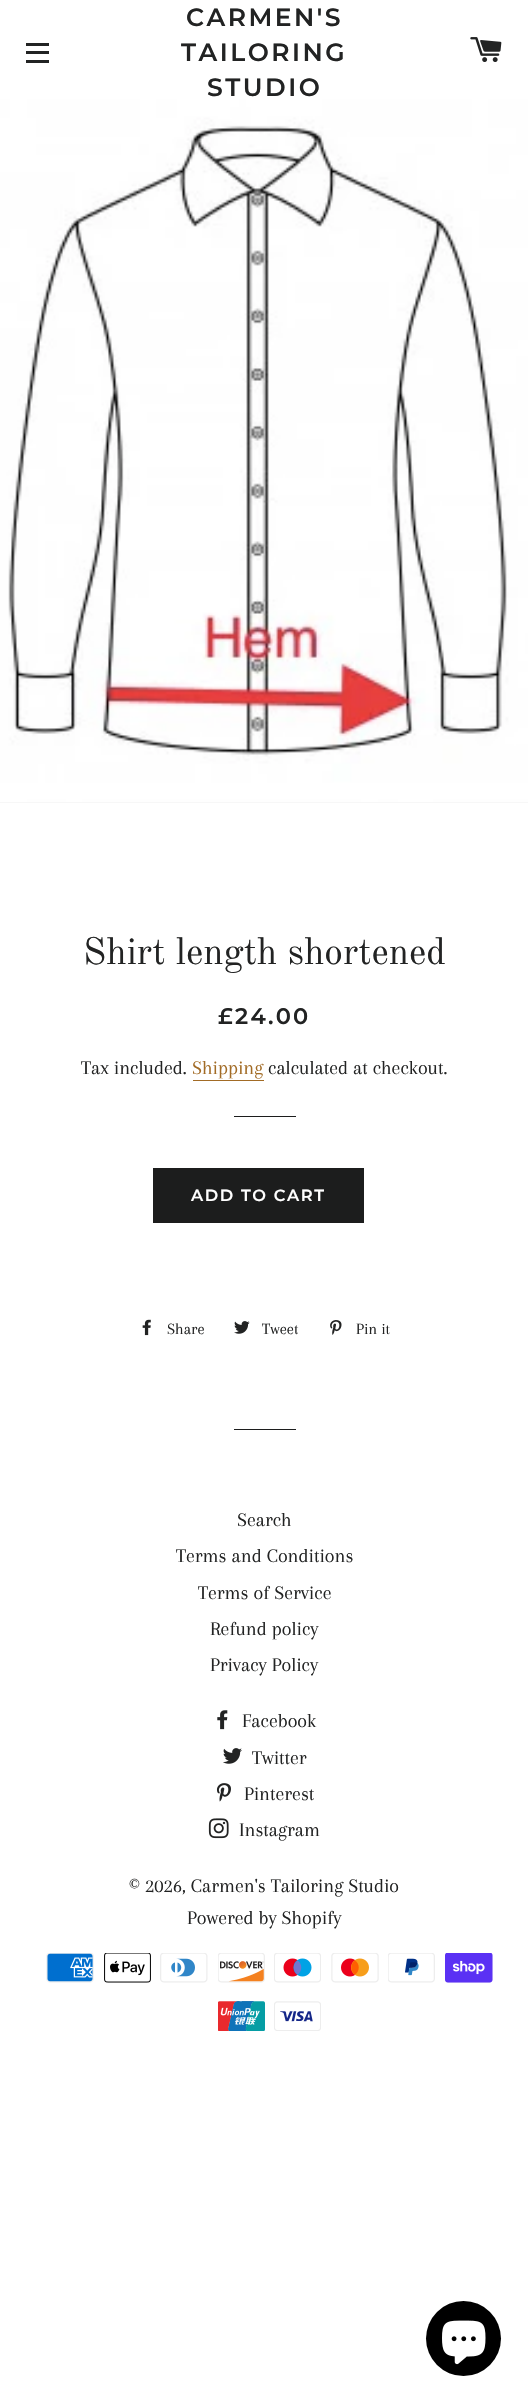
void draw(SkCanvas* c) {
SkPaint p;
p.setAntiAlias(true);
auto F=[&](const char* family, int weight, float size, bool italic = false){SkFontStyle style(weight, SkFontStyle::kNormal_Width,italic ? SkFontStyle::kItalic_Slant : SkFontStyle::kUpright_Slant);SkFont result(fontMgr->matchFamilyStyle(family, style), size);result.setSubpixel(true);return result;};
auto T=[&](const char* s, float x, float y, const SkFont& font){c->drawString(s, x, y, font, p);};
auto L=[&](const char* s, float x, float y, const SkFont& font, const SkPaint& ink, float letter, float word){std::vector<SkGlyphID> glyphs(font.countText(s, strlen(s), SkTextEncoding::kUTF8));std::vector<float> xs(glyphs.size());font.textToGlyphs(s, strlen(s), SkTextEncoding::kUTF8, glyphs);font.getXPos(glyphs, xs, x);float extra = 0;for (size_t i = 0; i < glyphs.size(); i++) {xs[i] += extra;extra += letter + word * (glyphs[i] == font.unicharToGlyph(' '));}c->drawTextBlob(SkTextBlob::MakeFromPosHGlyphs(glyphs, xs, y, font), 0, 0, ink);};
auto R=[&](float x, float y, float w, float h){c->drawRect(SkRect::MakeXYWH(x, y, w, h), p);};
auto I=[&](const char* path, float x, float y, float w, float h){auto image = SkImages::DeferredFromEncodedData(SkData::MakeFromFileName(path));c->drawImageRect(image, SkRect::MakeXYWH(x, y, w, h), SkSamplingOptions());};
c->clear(0xffffffff);
p.setColor(0xff222323);
R(26,43,23,3);
R(26,51,23,3);
R(26,60,23,3);
auto f1 = F("Montserrat",600,25);
L("CARMEN'S",186,26,f1,p,2.5,0);
L("TAILORING",181,61,f1,p,2.5,0);
L("STUDIO",207,96,f1,p,2.5,0);
I("1.png",470,37,32,25);
p.setColor(0xfff7f7f7);
R(0,802,528,1);
I("2.png",0,99,528,703);
auto f2 = F("Old Standard TT",400,37.5);
p.setColor(0xff222323);
T("Shirt length shortened",83,964,f2);
auto f3 = F("Montserrat",600,22.5);
L("£24.00",218,1024,f3,p,2.25,0);
auto f4 = F("Arapey",400,20);
T("Tax included.",81,1074,f4);
p.setColor(0xffa26b25);
T("Shipping",192,1074,f4);
R(193,1080,71,1);
p.setColor(0xff222323);
T("calculated at checkout.",268,1074,f4);
p.setColor(0xff1c1d1d);
R(234,1116,62,1);
R(153,1168,211,55);
auto f5 = F("Montserrat",600,16.25);
p.setColor(0xffffffff);
L("ADD TO CART",191,1201,f5,p,1.6,0);
I("3.png",142,1319,9,17);
auto f6 = F("Arapey",400,16.25);
p.setColor(0xff222323);
T("Share",167,1334,f6);
I("4.png",234,1321,16,13);
T("Tweet",262,1334,f6);
I("5.png",330,1320,12,15);
T("Pin it",356,1334,f6);
p.setColor(0xff1c1d1d);
R(234,1429,62,1);
p.setColor(0xff222323);
T("Search",237,1526,f4);
T("Terms and Conditions",176,1562,f4);
T("Terms of Service",198,1599,f4);
T("Refund policy",210,1635,f4);
T("Privacy Policy",210,1671,f4);
I("6.png",217,1710,11,20);
T("Facebook",242,1727,f4);
I("7.png",223,1748,19,16);
T("Twitter",252,1764,f4);
I("8.png",216,1783,15,19);
T("Pinterest",244,1800,f4);
I("9.png",208,1818,21,21);
T("Instagram",239,1836,f4);
T("© 2026, Carmen's Tailoring Studio",129,1892,f4);
T("Powered by Shopify",187,1924,f4);
I("10.png",46,1953,48,30);
I("11.png",104,1953,47,30);
I("12.png",160,1953,48,30);
I("13.png",218,1953,47,30);
I("14.png",274,1953,47,30);
I("15.png",331,1953,48,30);
I("16.png",388,1953,47,30);
I("17.png",445,1953,48,30);
I("18.png",218,2001,47,30);
I("19.png",274,2001,47,30);
p.setColor(0xff000000);
c->drawCircle(463.5,2338.5,37.5,p);
I("20.png",442,2320,44,45);
}
